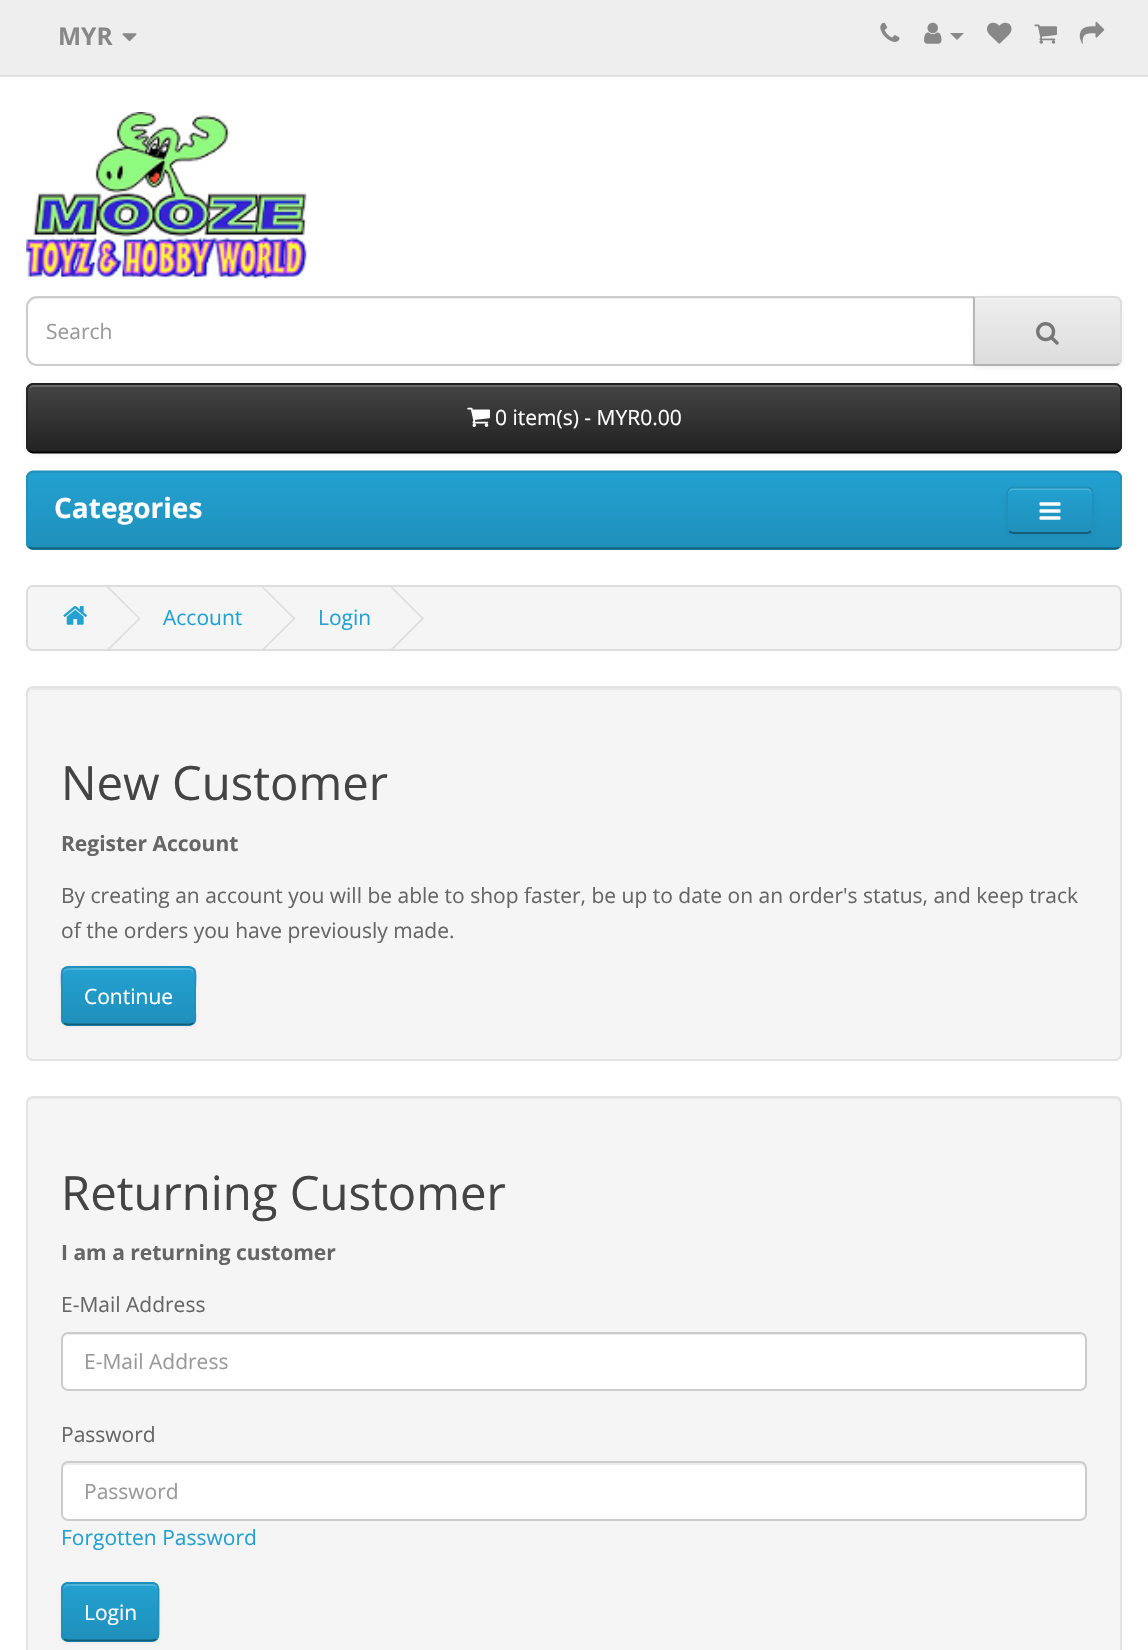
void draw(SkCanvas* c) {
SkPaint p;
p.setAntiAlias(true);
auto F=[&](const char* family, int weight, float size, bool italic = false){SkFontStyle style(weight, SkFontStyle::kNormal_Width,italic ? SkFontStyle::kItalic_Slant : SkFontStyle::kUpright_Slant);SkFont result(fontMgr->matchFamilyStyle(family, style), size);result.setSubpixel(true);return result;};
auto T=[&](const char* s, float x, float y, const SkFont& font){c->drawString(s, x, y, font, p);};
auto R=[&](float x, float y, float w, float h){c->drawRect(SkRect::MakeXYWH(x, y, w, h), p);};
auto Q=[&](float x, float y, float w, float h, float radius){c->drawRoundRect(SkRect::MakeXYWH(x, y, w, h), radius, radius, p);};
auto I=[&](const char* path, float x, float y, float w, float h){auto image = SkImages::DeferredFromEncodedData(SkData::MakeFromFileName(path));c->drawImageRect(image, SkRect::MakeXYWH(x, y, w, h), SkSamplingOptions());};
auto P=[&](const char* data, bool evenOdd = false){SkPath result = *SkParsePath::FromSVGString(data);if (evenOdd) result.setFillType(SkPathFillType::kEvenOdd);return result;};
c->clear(0xffffffff);
p.setColor(0xffeeeeee);
R(0,0,1148,75);
p.setColor(0xffe2e2e2);
R(0,75,1148,2);
auto f1 = F("Open Sans",700,24.5);
p.setColor(0xff888888);
T("MYR",58,45,f1);
I("1.png",122,33,15,8);
I("2.png",880,22,20,20);
I("3.png",924,22,18,22);
c->drawPath(P("M950 33h14l-7 7z"),p);
I("4.png",987,22,25,22);
I("5.png",1034,24,23,20);
I("6.png",1079,22,26,22);
I("7.png",26,112,281,167);
p.setColor(0xffececec);
c->drawPath(P("M37 299h936v-1h-936c-6 0-9 5-9 10c0-5 4-9 9-9z"),p);
p.setStroke(true);
p.setStrokeWidth(2);
p.setColor(0xffcccccc);
c->drawPath(P("M37 297h937v68h-937c-5.5 0-10-4.5-10-10v-48c0-5.5 4.5-10 10-10z"),p);
auto f2 = F("Open Sans",400,21);
p.setStroke(false);
p.setColor(0xff999999);
T("Search",46,339,f2);
p.setColor(0x0d000000);
p.setMaskFilter(SkMaskFilter::MakeBlur(kNormal_SkBlurStyle, 2));
c->drawRoundRect(SkRect::MakeXYWH(973,298,149,70),7,7,p);
p.setMaskFilter(nullptr);
c->save();
c->clipPath(P("M973 296h142c4 0 7 3 7 7v56c0 4-3 7-7 7h-142z"),true);
{
const SkColor colors[] = {0xffeeeeee,0xffdddddd};
const float stops[] = {0,1};
const SkPoint ends[] = {{1047,298}, {1047,364}};
p.setShader(SkGradientShader::MakeLinear(ends, colors, stops, 2, SkTileMode::kClamp));
p.setAlpha(255);
}
R(975,298,147,66);
c->restore();
p.setShader(nullptr);
p.setColor(0xfff1f1f1);
c->drawPath(P("M975 299h140c3 0 5 3 5 5v-1c0-3-2-5-5-5h-140z"),p);
p.setColor(0xffdddddd);
c->drawPath(P("M1120 298c-1-1-3-2-5-2h-142l2 2h140l3 1z"),p);
c->drawPath(P("M1120 298l2 3v60l-2 3l-1-1l1-3v-58l-2-3z"),p);
p.setColor(0xffb3b3b3);
c->drawPath(P("M1117 366h-144l2-2h141l3-1l1 1z"),p);
p.setColor(0xffb7b7b7);
c->drawPath(P("M975 298l-2-2v70l2-2z"),p);
I("8.png",1036,322,23,23);
p.setColor(0x0d000000);
p.setMaskFilter(SkMaskFilter::MakeBlur(kNormal_SkBlurStyle, 2));
c->drawRoundRect(SkRect::MakeXYWH(26,385,1096,70),7,7,p);
p.setMaskFilter(nullptr);
p.setColor(0xff363636);
Q(26,383,1096,70,7);
c->save();
c->clipPath(P("M33 383h1082c4 0 7 3 7 7v56c0 4-3 7-7 7h-1082c-4 0-7-3-7-7v-56c0-4 3-7 7-7z"),true);
{
const SkColor colors[] = {0xff444444,0xff222222};
const float stops[] = {0,1};
const SkPoint ends[] = {{574,385}, {574,452}};
p.setShader(SkGradientShader::MakeLinear(ends, colors, stops, 2, SkTileMode::kClamp));
p.setAlpha(255);
}
R(26,385,1096,67);
c->restore();
p.setShader(nullptr);
p.setColor(0xff696969);
c->drawPath(P("M33 387h1082c3 0 5 2 5 5v-2c0-3-2-5-5-5h-1082c-3 0-5 2-5 5v2c0-3 2-5 5-5z"),p);
p.setStroke(true);
p.setStrokeWidth(1.8);
p.setColor(0xff000000);
c->drawPath(P("M1119 450.5c-1 1-2.5 2-4 2h-1082c-1.5 0-3-1-4-2"),p);
p.setColor(0xff222222);
c->drawPath(P("M29 450.5l-2-3v-58l1.5-3c1-1.5 3-2.5 4.5-2.5h1082c1.5 0 3.5 1 4.5 2.5l1.5 3v58l-2 3"),p);
I("9.png",467,407,23,20);
p.setStroke(false);
p.setColor(0xffffffff);
T("0 item(s) - MYR0.00",495,425,f2);
p.setColor(0xff229ac8);
Q(26,471,1096,79,7);
c->save();
c->clipPath(P("M33 471h1082c4 0 7 3 7 7v65c0 4-3 7-7 7h-1082c-4 0-7-3-7-7v-65c0-4 3-7 7-7z"),true);
{
const SkColor colors[] = {0xff23a1d1,0xff1f90bb};
const float stops[] = {0,1};
const SkPoint ends[] = {{574,472}, {574,548}};
p.setShader(SkGradientShader::MakeLinear(ends, colors, stops, 2, SkTileMode::kClamp));
p.setAlpha(255);
}
R(26,473,1096,75);
c->restore();
p.setStroke(true);
p.setShader(nullptr);
p.setColor(0xff145e7a);
c->drawPath(P("M1119 547c-1 1-2.5 1.5-4 1.5h-1082c-1.5 0-3-.5-4-1.5"),p);
p.setColor(0xff1f90bb);
c->drawPath(P("M29 547l-2-3.5v-66.5l1-2.5c1.5-2 3-3 5-3h1082c2 0 3.5 1 5 3l1 2.5v66.5l-2 3.5"),p);
auto f3 = F("Open Sans",700,28);
p.setStroke(false);
p.setColor(0xffffffff);
T("Categories",54,518,f3);
p.setColor(0x0d000000);
p.setMaskFilter(SkMaskFilter::MakeBlur(kNormal_SkBlurStyle, 2));
c->drawRoundRect(SkRect::MakeXYWH(1006,488,88,48),7,7,p);
p.setMaskFilter(nullptr);
p.setColor(0xff229ac8);
Q(1006,487,88,47,7);
c->save();
c->clipPath(P("M1013 487h74c4 0 7 3 7 7v33c0 4-3 7-7 7h-74c-4 0-7-3-7-7v-33c0-4 3-7 7-7z"),true);
{
const SkColor colors[] = {0xff23a1d1,0xff1f90bb};
const float stops[] = {0,1};
const SkPoint ends[] = {{1050,488}, {1050,532}};
p.setShader(SkGradientShader::MakeLinear(ends, colors, stops, 2, SkTileMode::kClamp));
p.setAlpha(255);
}
R(1006,488,88,44);
c->restore();
p.setShader(nullptr);
p.setColor(0xff4fb3da);
c->drawPath(P("M1013 490h74c3 0 5 2 5 5c0-10-9-7-17-7h-50c-8 0-17-3-17 7c0-3 2-5 5-5z"),p);
p.setStroke(true);
p.setColor(0xff145e7a);
c->drawPath(P("M1091 531c-1 1-2.5 2-4 2h-74c-1.5 0-3-1-4-2"),p);
p.setColor(0xff1f90bb);
c->drawPath(P("M1009 531c-1-1-2-2.5-2-4v-33.5c0-1.5 1-3 2-4.5c1-1 2.5-1.5 4-1.5h74c1.5 0 3 .5 4 1.5c1 1.5 2 3 2 4.5v33.5c0 1.5-1 3-2 4"),p);
I("10.png",1039,502,22,18);
p.setStroke(false);
p.setColor(0xfff5f5f5);
c->drawRoundRect(SkRect::MakeXYWH(27,586,1094,64),6,6,p);
p.setStroke(true);
p.setStrokeWidth(2);
p.setColor(0xffdddddd);
c->drawRoundRect(SkRect::MakeXYWH(27,586,1094,64),6,6,p);
I("11.png",63,606,24,19);
p.setStroke(false);
c->drawPath(P("M107 587.5l1.5-1l32 32l-1 1z"),p);
c->drawPath(P("M107 649.5l32.5-32l1 1l-32 32z"),p);
p.setColor(0xff23a1d1);
T("Account",163,625,f2);
p.setColor(0xffdddddd);
c->drawPath(P("M262 587.5l1-1l32.5 32l-1.5 1z"),p);
c->drawPath(P("M262 649.5l32-32l1.5 1l-32.5 32z"),p);
p.setColor(0xff23a1d1);
T("Login",318,625,f2);
p.setColor(0xffdddddd);
c->drawPath(P("M390.5 587.5l1.5-1l32 32l-1.5 1z"),p);
c->drawPath(P("M390.5 649.5l32-32l1.5 1l-32 32z"),p);
p.setColor(0xfff5f5f5);
Q(26,686,1096,375,7);
p.setColor(0xffe9e9e9);
c->drawPath(P("M33 690h1082c3 0 5 2 5 5v-2c0-3-2-5-5-5h-1082c-3 0-5 2-5 5v2c0-3 2-5 5-5z"),p);
p.setStroke(true);
p.setColor(0xffe3e3e3);
c->drawRoundRect(SkRect::MakeXYWH(27,687,1094,373),6,6,p);
auto f4 = F("Open Sans",400,47.25);
p.setStroke(false);
p.setColor(0xff444444);
T("New Customer",61,800,f4);
auto f5 = F("Open Sans",700,21);
p.setColor(0xff666666);
T("Register Account",61,851,f5);
T("By creating an account you will be able to shop faster, be up to date on an order's status, and keep track",61,903,f2);
T("of the orders you have previously made.",61,938,f2);
p.setColor(0x0d000000);
p.setMaskFilter(SkMaskFilter::MakeBlur(kNormal_SkBlurStyle, 2));
c->drawRoundRect(SkRect::MakeXYWH(61,968,135,59),7,7,p);
p.setMaskFilter(nullptr);
p.setColor(0xff229ac8);
Q(61,966,135,60,7);
c->save();
c->clipPath(P("M68 966h121c4 0 7 3 7 7v46c0 4-3 7-7 7h-121c-4 0-7-3-7-7v-46c0-4 3-7 7-7z"),true);
{
const SkColor colors[] = {0xff23a1d1,0xff1f90bb};
const float stops[] = {0,1};
const SkPoint ends[] = {{129,968}, {129,1024}};
p.setShader(SkGradientShader::MakeLinear(ends, colors, stops, 2, SkTileMode::kClamp));
p.setAlpha(255);
}
R(61,968,135,56);
c->restore();
p.setShader(nullptr);
p.setColor(0xff4fb4da);
c->drawPath(P("M68 970h121c3 0 5 2 5 5v-2c0-3-2-5-5-5h-121c-3 0-5 2-5 5v2c0-3 2-5 5-5z"),p);
p.setStroke(true);
p.setStrokeWidth(1.8);
p.setColor(0xff145e7a);
c->drawPath(P("M193.5 1023c-1.5 1-3 1.5-4.5 1.5h-121c-1.5 0-3-.5-4-1.5"),p);
p.setColor(0xff1f90bb);
c->drawPath(P("M64 1023c-3-3-2-8.5-2-12v-15c0-32.5-5.5-29 26.5-29h80.5c32 0 26-3.5 26 29v15c0 3.5 1.5 9-1.5 12"),p);
p.setStroke(false);
p.setColor(0xffffffff);
T("Continue",84,1004,f2);
p.setColor(0xfff5f5f5);
Q(26,1096,1096,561,7);
p.setColor(0xffe9e9e9);
c->drawPath(P("M33 1099h1082c3 0 5 2 5 5v-2c0-3-2-5-5-5h-1082c-3 0-5 2-5 5v2c0-3 2-5 5-5z"),p);
p.setStroke(true);
p.setStrokeWidth(2);
p.setColor(0xffe3e3e3);
c->drawRoundRect(SkRect::MakeXYWH(27,1097,1094,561),6,6,p);
p.setStroke(false);
p.setColor(0xff444444);
T("Returning Customer",61,1210,f4);
p.setColor(0xff666666);
T("I am a returning customer",61,1260,f5);
T("E-Mail Address",61,1312,f2);
p.setColor(0xffffffff);
Q(61,1332,1026,59,7);
p.setColor(0xffececec);
c->drawPath(P("M68 1335h1012c3 0 5 3 5 5c0-3-2-6-5-6h-1012c-3 0-5 3-5 6c0-2 2-5 5-5z"),p);
p.setStroke(true);
p.setColor(0xffcccccc);
c->drawRoundRect(SkRect::MakeXYWH(62,1333,1024,57),6,6,p);
p.setStroke(false);
p.setColor(0xff999999);
T("E-Mail Address",84,1369,f2);
p.setColor(0xff666666);
T("Password",61,1442,f2);
p.setColor(0xffffffff);
Q(61,1461,1026,60,7);
p.setColor(0xffececec);
c->drawPath(P("M68 1465h1012c3 0 5 2 5 5v-2c0-3-2-5-5-5h-1012c-3 0-5 2-5 5v2c0-3 2-5 5-5z"),p);
p.setStroke(true);
p.setColor(0xffcccccc);
c->drawRoundRect(SkRect::MakeXYWH(62,1462,1024,58),6,6,p);
p.setStroke(false);
p.setColor(0xff999999);
T("Password",84,1499,f2);
p.setColor(0xff23a1d1);
T("Forgotten Password",61,1545,f2);
p.setColor(0x0d000000);
p.setMaskFilter(SkMaskFilter::MakeBlur(kNormal_SkBlurStyle, 2));
c->drawRoundRect(SkRect::MakeXYWH(61,1584,98,59),7,7,p);
p.setMaskFilter(nullptr);
p.setColor(0xff229ac8);
Q(61,1582,98,60,7);
c->save();
c->clipPath(P("M68 1582h84c4 0 7 3 7 7v46c0 4-3 7-7 7h-84c-4 0-7-3-7-7v-46c0-4 3-7 7-7z"),true);
{
const SkColor colors[] = {0xff23a1d1,0xff1f90bb};
const float stops[] = {0,1};
const SkPoint ends[] = {{110,1584}, {110,1640}};
p.setShader(SkGradientShader::MakeLinear(ends, colors, stops, 2, SkTileMode::kClamp));
p.setAlpha(255);
}
R(61,1584,98,56);
c->restore();
p.setShader(nullptr);
p.setColor(0x33ffffff);
c->drawPath(P("M68 1586h84c3 0 6 2 6 5c0-11-11-7-19-7h-57c-8 0-19-4-19 7c0-3 2-5 5-5z"),p);
p.setStroke(true);
p.setStrokeWidth(1.8);
p.setColor(0xff145e7a);
c->drawPath(P("M156.5 1639c-1 1-2.5 1.5-4.5 1.5h-84c-1.5 0-3-.5-4-1.5"),p);
p.setColor(0xff1f90bb);
c->drawPath(P("M64 1639c-1-1.5-2-3-2-4.5v-45.5c0-1.5 1-3 2-4.5c1-1 2.5-1.5 4-1.5h84c2 0 3.5 .5 4.5 1.5c1 1.5 2 3 2 4.5v45.5c0 1.5-1 3-2 4.5"),p);
p.setStroke(false);
p.setColor(0xffffffff);
T("Login",84,1620,f2);
}
